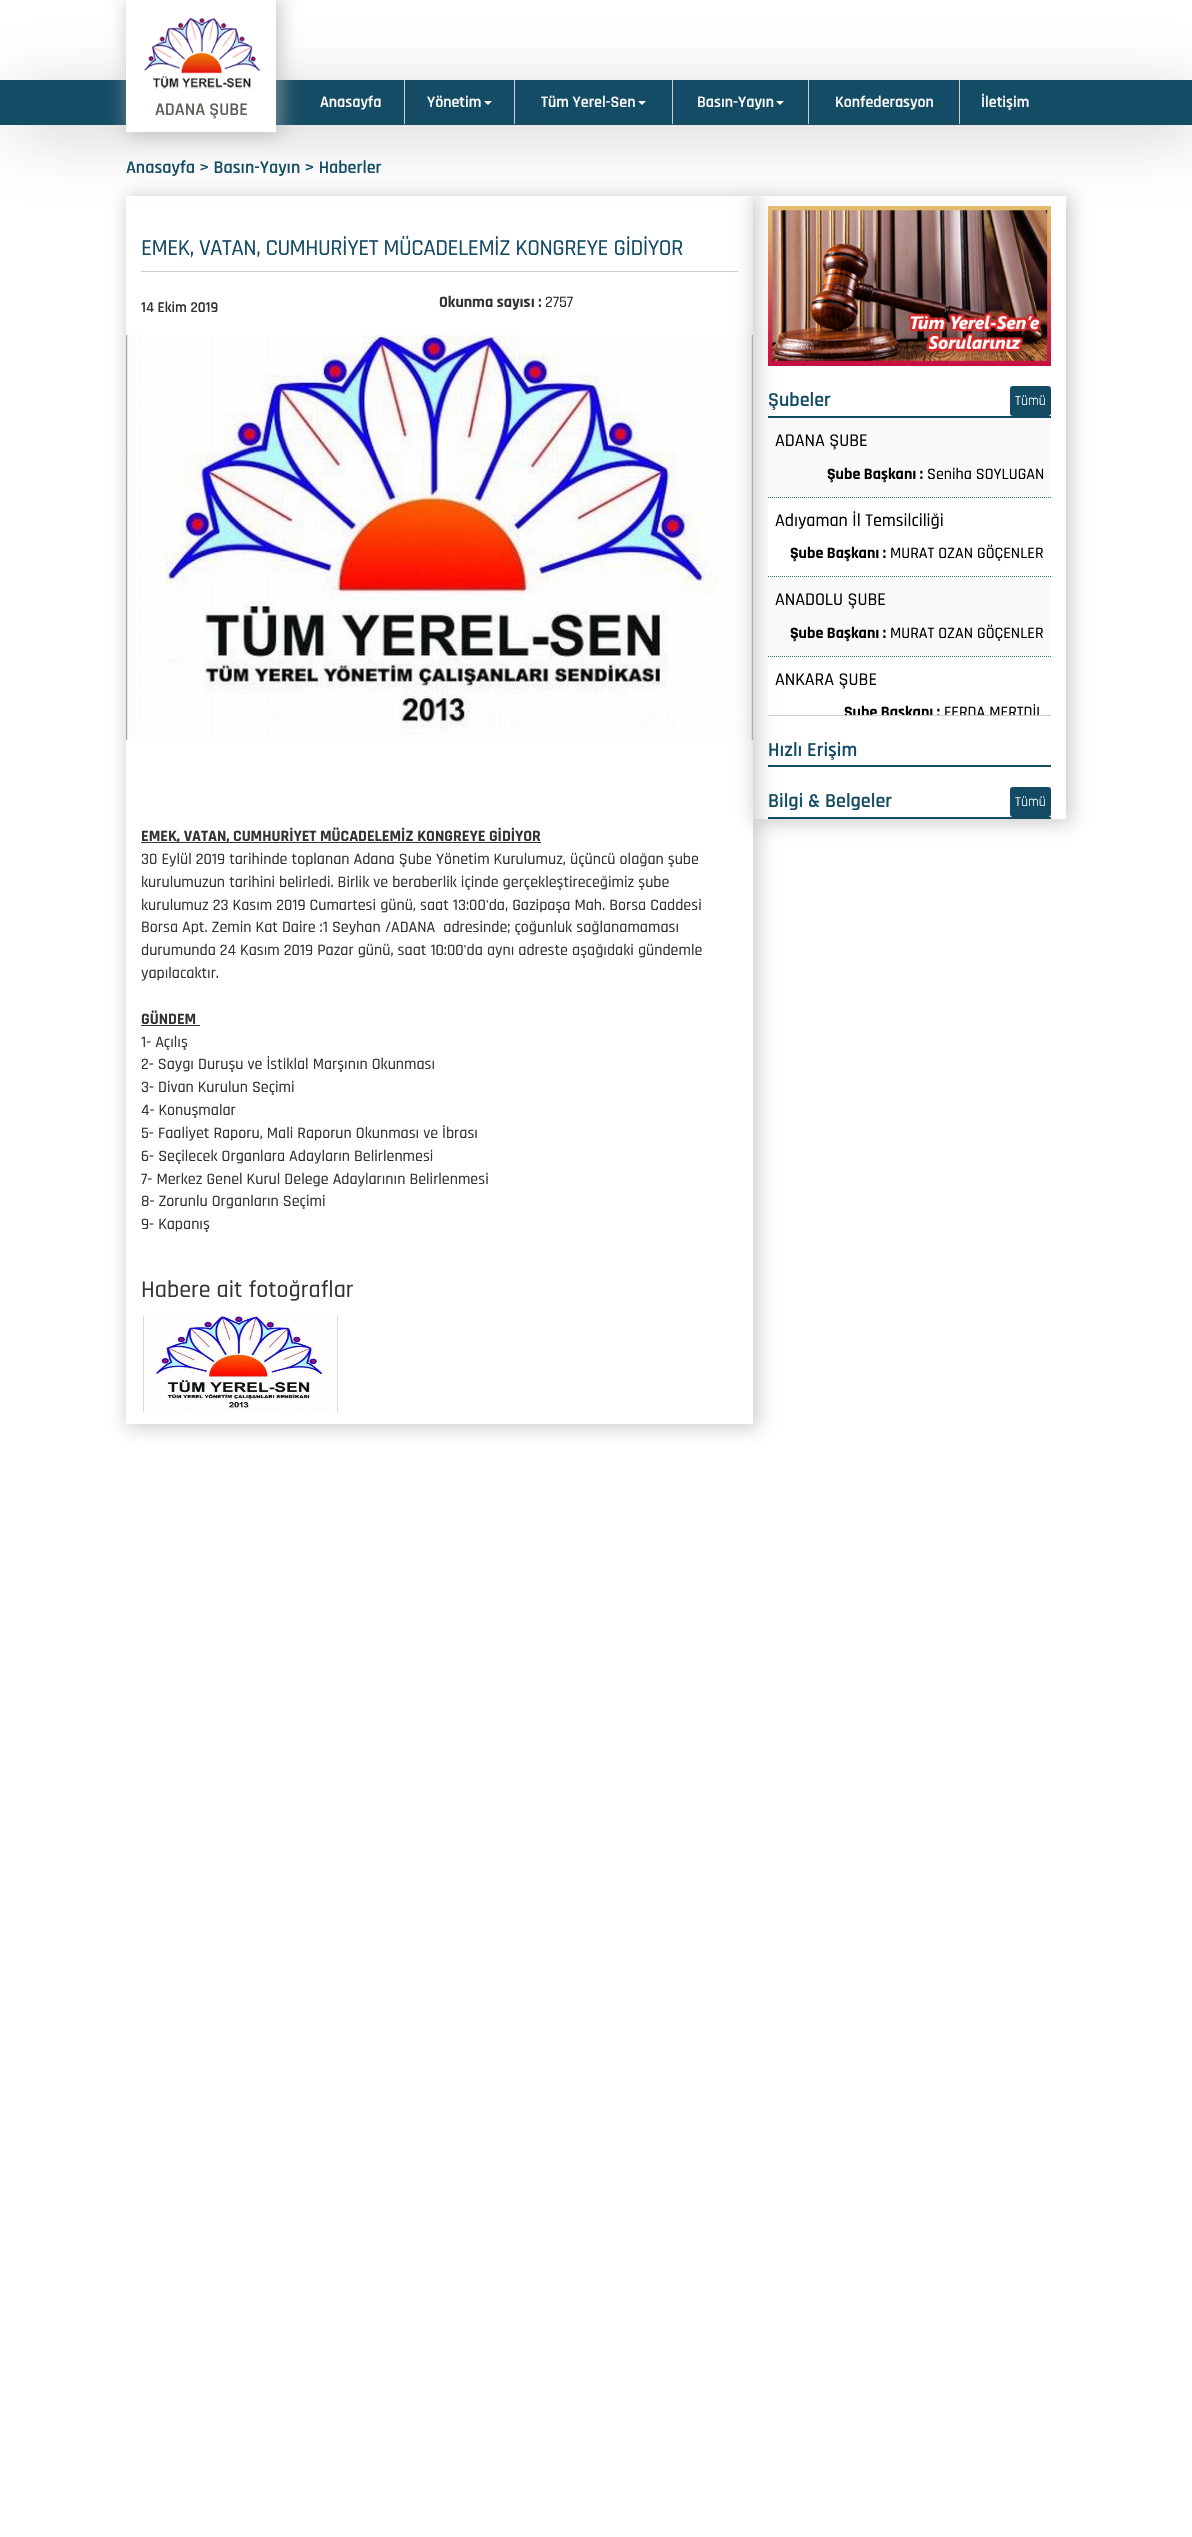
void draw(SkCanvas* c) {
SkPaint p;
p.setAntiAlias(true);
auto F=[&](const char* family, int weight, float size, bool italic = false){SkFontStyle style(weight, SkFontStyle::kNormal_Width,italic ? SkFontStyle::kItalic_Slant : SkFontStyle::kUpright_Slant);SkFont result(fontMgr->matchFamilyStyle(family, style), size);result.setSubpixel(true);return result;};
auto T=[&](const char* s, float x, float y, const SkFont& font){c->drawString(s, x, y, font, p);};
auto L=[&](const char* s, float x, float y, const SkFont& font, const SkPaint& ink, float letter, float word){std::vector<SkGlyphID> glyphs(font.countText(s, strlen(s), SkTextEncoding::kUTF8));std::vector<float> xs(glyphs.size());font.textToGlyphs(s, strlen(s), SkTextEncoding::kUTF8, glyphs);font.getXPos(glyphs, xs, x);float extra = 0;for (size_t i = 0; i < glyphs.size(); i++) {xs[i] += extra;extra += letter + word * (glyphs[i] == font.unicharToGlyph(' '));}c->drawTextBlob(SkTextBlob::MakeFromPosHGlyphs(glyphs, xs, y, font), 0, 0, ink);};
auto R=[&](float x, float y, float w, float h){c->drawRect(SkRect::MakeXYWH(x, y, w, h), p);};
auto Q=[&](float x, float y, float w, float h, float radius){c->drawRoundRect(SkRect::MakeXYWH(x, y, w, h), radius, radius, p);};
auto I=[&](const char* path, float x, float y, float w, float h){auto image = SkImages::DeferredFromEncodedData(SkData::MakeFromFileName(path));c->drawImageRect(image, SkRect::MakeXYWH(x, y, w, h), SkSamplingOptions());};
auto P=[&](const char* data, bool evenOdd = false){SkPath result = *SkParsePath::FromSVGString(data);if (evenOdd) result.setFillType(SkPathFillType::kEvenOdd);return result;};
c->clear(0xffffffff);
p.setColor(0xffc2c2c2);
p.setMaskFilter(SkMaskFilter::MakeBlur(kNormal_SkBlurStyle, 31.5));
c->drawRect(SkRect::MakeXYWH(16,96,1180,33),p);
p.setMaskFilter(nullptr);
p.setColor(0xff144b65);
R(0,80,1192,45);
p.setColor(0xa3adadad);
p.setMaskFilter(SkMaskFilter::MakeBlur(kNormal_SkBlurStyle, 9));
c->drawRect(SkRect::MakeXYWH(127,-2,154,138),p);
p.setMaskFilter(nullptr);
p.setColor(0xffffffff);
R(126,0,150,132);
I("1.png",144,16,117,73);
auto f1 = F("Rajdhani",600,18);
p.setColor(0xff635f59);
T("ADANA ŞUBE",155,115,f1);
p.setColor(0xffcdcdcd);
R(404,80,1,44);
auto f2 = F("Rajdhani",600,16);
p.setColor(0xffffffff);
T("Anasayfa",320,107,f2);
p.setColor(0xffcdcdcd);
R(514,80,1,44);
p.setColor(0xffffffff);
T("Yönetim",427,107,f2);
c->drawPath(P("M484 101h8l-4 4z"),p);
p.setColor(0xffcdcdcd);
R(672,80,1,44);
p.setColor(0xffffffff);
T("Tüm Yerel-Sen",541,107,f2);
c->drawPath(P("M638 101h8l-4 4z"),p);
p.setColor(0xffcdcdcd);
R(808,80,1,44);
p.setColor(0xffffffff);
T("Basın-Yayın",697,107,f2);
c->drawPath(P("M776 101h8l-4 4z"),p);
p.setColor(0xffcdcdcd);
R(959,80,1,44);
p.setColor(0xffffffff);
T("Konfederasyon",835,107,f2);
T("İletişim",981,107,f2);
p.setColor(0xff144b65);
T("Anasayfa > Basın-Yayın > Haberler",126,173,f1);
c->save();
c->clipPath(P("M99 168h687v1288h-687zm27 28h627v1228h-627z",true),true);
p.setColor(0xa3adadad);
p.setMaskFilter(SkMaskFilter::MakeBlur(kNormal_SkBlurStyle, 9));
c->drawRect(SkRect::MakeXYWH(127,196,631,1232),p);
p.setMaskFilter(nullptr);
c->restore();
p.setColor(0xffcdcdcd);
R(141,271,597,1);
auto f3 = F("Rajdhani",500,23);
p.setColor(0xff144b65);
L("EMEK, VATAN, CUMHURİYET MÜCADELEMİZ KONGREYE GİDİYOR",141,255,f3,p,-.5,0);
auto f4 = F("Rajdhani",600,15);
p.setColor(0xff333333);
T("14 Ekim 2019",141,312,f4);
auto f5 = F("Rajdhani",700,16);
T("Okunma sayısı :",439,307,f5);
auto f6 = F("Rajdhani",500,16);
T("2757",545,307,f6);
I("2.png",126,335,627,405);
R(141,842,400,1);
T("EMEK, VATAN, CUMHURİYET MÜCADELEMİZ KONGREYE GİDİYOR",141,841,f5);
T("30 Eylül 2019 tarihinde toplanan Adana Şube Yönetim Kurulumuz, üçüncü olağan şube",141,864,f6);
T("kurulumuzun tarihini belirledi. Birlik ve beraberlik içinde gerçekleştireceğimiz şube",141,887,f6);
T("kurulumuz 23 Kasım 2019 Cumartesi günü, saat 13:00'da, Gazipaşa Mah. Borsa Caddesi",141,910,f6);
T("Borsa Apt. Zemin Kat Daire :1 Seyhan /ADANA  adresinde; çoğunluk sağlanamaması",141,932,f6);
T("durumunda 24 Kasım 2019 Pazar günü, saat 10:00'da aynı adreste aşağıdaki gündemle",141,955,f6);
T("yapılacaktır.",141,978,f6);
T("GÜNDEM",141,1024,f5);
R(141,1025,59,1);
T("1- Açılış",141,1047,f6);
T("2- Saygı Duruşu ve İstiklal Marşının Okunması",141,1069,f6);
T("3- Divan Kurulun Seçimi",141,1092,f6);
T("4- Konuşmalar",141,1115,f6);
T("5- Faaliyet Raporu, Mali Raporun Okunması ve İbrası",141,1138,f6);
T("6- Seçilecek Organlara Adayların Belirlenmesi",141,1161,f6);
T("7- Merkez Genel Kurul Delege Adaylarının Belirlenmesi",141,1184,f6);
T("8- Zorunlu Organların Seçimi",141,1206,f6);
T("9- Kapanış",141,1229,f6);
auto f7 = F("Rajdhani",500,24);
T("Habere ait fotoğraflar",141,1297,f7);
I("3.png",143,1316,195,96);
c->save();
c->clipPath(P("M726 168h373v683h-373zm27 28h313v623h-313z",true),true);
p.setColor(0xa3adadad);
p.setMaskFilter(SkMaskFilter::MakeBlur(kNormal_SkBlurStyle, 9));
c->drawRect(SkRect::MakeXYWH(754,196,317,627),p);
p.setMaskFilter(nullptr);
c->restore();
I("4.png",768,206,283,160);
auto f8 = F("Rajdhani",600,20);
p.setColor(0xff144b65);
T("Şubeler",768,406,f8);
Q(1010,386,41,30,3);
auto f9 = F("Rajdhani",400,14);
p.setColor(0xffffffff);
T("Tümü",1015,405,f9);
p.setColor(0xfff9f9f9);
R(772,418,279,239);
p.setColor(0xff144b65);
R(768,416,283,2);
p.setColor(0xffcdcdcd);
R(768,715,283,1);
p.setStroke(true);
p.setStrokeWidth(1);
p.setColor(0xff2c8162);
p.setPathEffect(SkDashPathEffect::Make({{1,1}}, 0));
c->drawPath(P("M768 497.5h283"),p);
p.setPathEffect(nullptr);
auto f10 = F("Rajdhani",500,18);
p.setStroke(false);
p.setColor(0xff000000);
T("ADANA ŞUBE",775,446,f10);
T("Şube Başkanı :",827,479,f5);
T("Seniha SOYLUGAN",927,479,f6);
p.setColor(0xffffffff);
R(768,498,283,79);
p.setStroke(true);
p.setColor(0xff2c8162);
p.setPathEffect(SkDashPathEffect::Make({{1,1}}, 0));
c->drawPath(P("M768 576.5h283"),p);
p.setPathEffect(nullptr);
p.setStroke(false);
p.setColor(0xff000000);
T("Adıyaman İl Temsilciliği",775,526,f10);
T("Şube Başkanı :",790,558,f5);
T("MURAT OZAN GÖÇENLER",890,558,f6);
p.setStroke(true);
p.setColor(0xff2c8162);
p.setPathEffect(SkDashPathEffect::Make({{1,1}}, 0));
c->drawPath(P("M768 656.5h283"),p);
p.setPathEffect(nullptr);
p.setStroke(false);
p.setColor(0xff000000);
T("ANADOLU ŞUBE",775,605,f10);
T("Şube Başkanı :",790,638,f5);
T("MURAT OZAN GÖÇENLER",890,638,f6);
p.setColor(0xffffffff);
R(768,657,5,58);
p.setColor(0xff000000);
T("ANKARA ŞUBE",775,685,f10);
c->save();
c->clipRect(SkRect::MakeXYWH(768,418,283,297));
T("Şube Başkanı :",844,717,f5);
T("FERDA MERTDİL",944,717,f6);
c->restore();
p.setColor(0xff144b65);
T("Hızlı Erişim",768,756,f8);
R(768,765,283,2);
T("Bilgi & Belgeler",768,807,f8);
Q(1010,787,41,30,3);
p.setColor(0xffffffff);
T("Tümü",1015,806,f9);
p.setColor(0xff144b65);
R(768,817,283,2);
}
